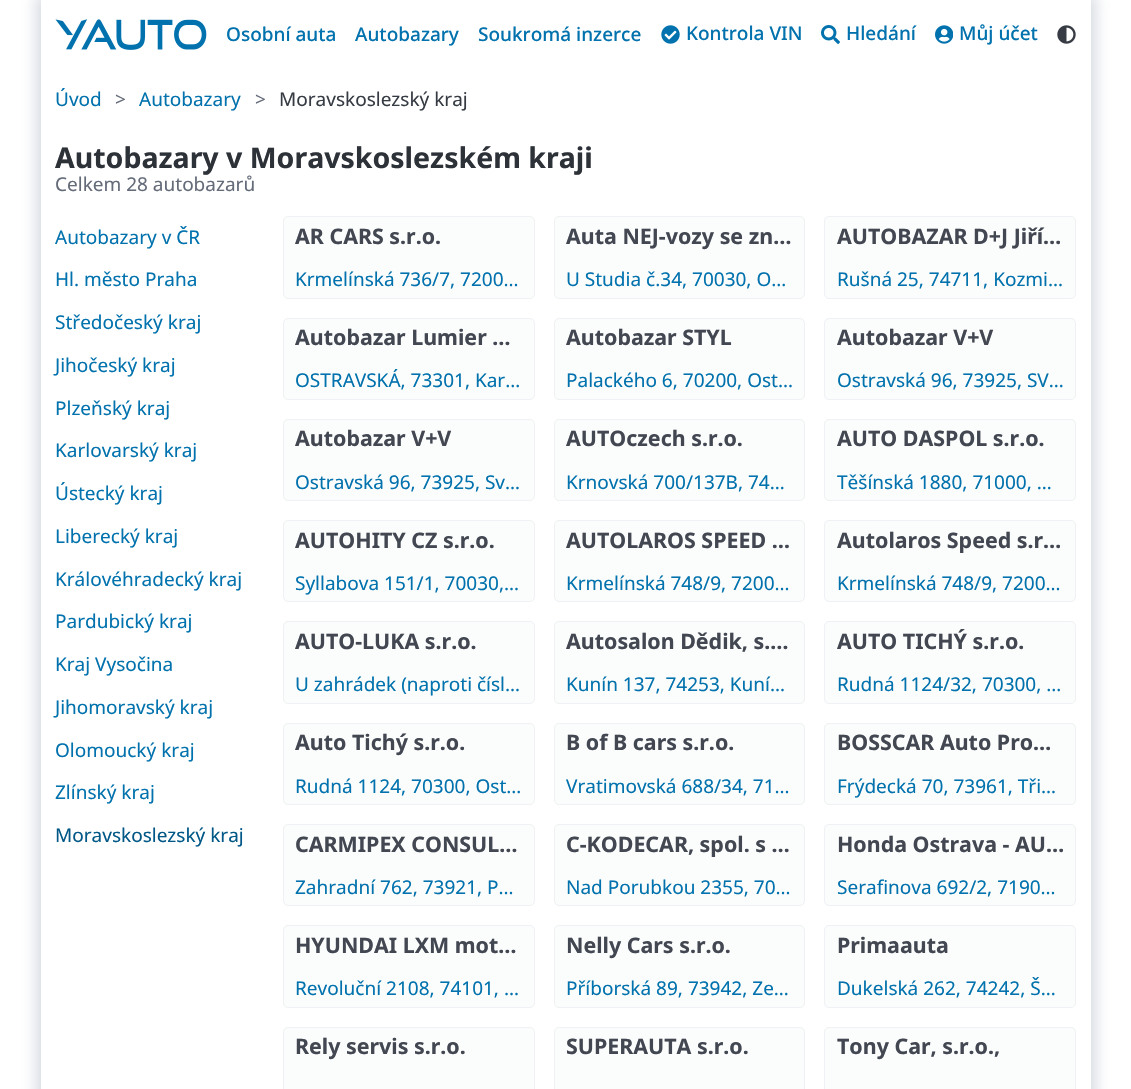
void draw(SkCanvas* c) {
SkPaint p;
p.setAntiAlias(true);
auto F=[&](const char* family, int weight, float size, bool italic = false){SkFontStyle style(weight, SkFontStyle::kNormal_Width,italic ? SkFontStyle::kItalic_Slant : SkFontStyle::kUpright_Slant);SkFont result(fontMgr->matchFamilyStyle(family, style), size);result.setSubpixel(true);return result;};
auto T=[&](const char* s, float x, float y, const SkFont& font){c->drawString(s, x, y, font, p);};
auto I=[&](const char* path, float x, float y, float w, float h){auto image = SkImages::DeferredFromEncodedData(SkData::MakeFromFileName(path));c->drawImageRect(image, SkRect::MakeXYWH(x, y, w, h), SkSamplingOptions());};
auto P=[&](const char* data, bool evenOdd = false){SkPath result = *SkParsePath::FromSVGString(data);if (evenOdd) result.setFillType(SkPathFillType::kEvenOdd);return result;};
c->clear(0xffffffff);
c->save();
c->clipPath(P("M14 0h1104v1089h-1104zm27 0h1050v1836h-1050z",true),true);
p.setColor(0x405d6b89);
p.setMaskFilter(SkMaskFilter::MakeBlur(kNormal_SkBlurStyle, 7));
c->drawRect(SkRect::MakeXYWH(36,-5,1060,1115),p);
p.setMaskFilter(nullptr);
c->restore();
I("1.png",55,19,152,31);
auto f1 = F("Noto Sans",500,19);
p.setColor(0xff0172ad);
T("Osobní auta",226,41,f1);
T("Autobazary",355,41,f1);
T("Soukromá inzerce",478,41,f1);
I("2.png",661,25,19,19);
T("Kontrola VIN",686,40,f1);
I("3.png",821,25,19,19);
T("Hledání",846,40,f1);
I("4.png",935,25,18,19);
T("Můj účet",959,40,f1);
I("5.png",1057,25,19,19);
auto f2 = F("Noto Sans",400,19);
T("Úvod",55,106,f2);
p.setColor(0xff646b79);
T(">",115,106,f2);
p.setColor(0xff0172ad);
T("Autobazary",139,106,f2);
p.setColor(0xff646b79);
T(">",255,106,f2);
p.setColor(0xff373c44);
T("Moravskoslezský kraj",279,106,f2);
auto f3 = F("Noto Sans",700,28.5);
p.setColor(0xff2d3138);
T("Autobazary v Moravskoslezském kraji",55,168,f3);
p.setColor(0xff646b79);
T("Celkem 28 autobazarů",55,191,f2);
p.setColor(0xff0172ad);
T("Autobazary v ČR",55,244,f2);
T("Hl. město Praha",55,286,f2);
T("Středočeský kraj",55,329,f2);
T("Jihočeský kraj",55,372,f2);
T("Plzeňský kraj",55,415,f2);
T("Karlovarský kraj",55,457,f2);
T("Ústecký kraj",55,500,f2);
T("Liberecký kraj",55,543,f2);
T("Královéhradecký kraj",55,586,f2);
T("Pardubický kraj",55,628,f2);
T("Kraj Vysočina",55,671,f2);
T("Jihomoravský kraj",55,714,f2);
T("Olomoucký kraj",55,757,f2);
T("Zlínský kraj",55,799,f2);
p.setColor(0xff015887);
T("Moravskoslezský kraj",55,842,f2);
p.setColor(0xfffbfcfc);
c->drawRoundRect(SkRect::MakeXYWH(283.5,216.5,251,82),4.5,4.5,p);
p.setStroke(true);
p.setStrokeWidth(1);
p.setColor(0xffeff1f4);
c->drawRoundRect(SkRect::MakeXYWH(283.5,216.5,251,82),4.5,4.5,p);
auto f4 = F("Noto Sans",700,21.4);
p.setStroke(false);
p.setColor(0xff424751);
T("AR CARS s.r.o.",295,244,f4);
p.setColor(0xff0172ad);
T("Krmelínská 736/7, 7200…",295,286,f2);
p.setColor(0xfffbfcfc);
c->drawRoundRect(SkRect::MakeXYWH(554.5,216.5,250,82),4.5,4.5,p);
p.setStroke(true);
p.setColor(0xffeff1f4);
c->drawRoundRect(SkRect::MakeXYWH(554.5,216.5,250,82),4.5,4.5,p);
p.setStroke(false);
p.setColor(0xff424751);
T("Auta NEJ-vozy se zn…",566,244,f4);
p.setColor(0xff0172ad);
T("U Studia č.34, 70030, O…",566,286,f2);
p.setColor(0xfffbfcfc);
c->drawRoundRect(SkRect::MakeXYWH(824.5,216.5,251,82),4.5,4.5,p);
p.setStroke(true);
p.setColor(0xffeff1f4);
c->drawRoundRect(SkRect::MakeXYWH(824.5,216.5,251,82),4.5,4.5,p);
p.setStroke(false);
p.setColor(0xff424751);
T("AUTOBAZAR D+J Jiří…",837,244,f4);
p.setColor(0xff0172ad);
T("Rušná 25, 74711, Kozmi…",837,286,f2);
p.setColor(0xfffbfcfc);
c->drawRoundRect(SkRect::MakeXYWH(283.5,318.5,251,81),4.5,4.5,p);
p.setStroke(true);
p.setColor(0xffeff1f4);
c->drawRoundRect(SkRect::MakeXYWH(283.5,318.5,251,81),4.5,4.5,p);
p.setStroke(false);
p.setColor(0xff424751);
T("Autobazar Lumier …",295,345,f4);
p.setColor(0xff0172ad);
T("OSTRAVSKÁ, 73301, Kar…",295,387,f2);
p.setColor(0xfffbfcfc);
c->drawRoundRect(SkRect::MakeXYWH(554.5,318.5,250,81),4.5,4.5,p);
p.setStroke(true);
p.setColor(0xffeff1f4);
c->drawRoundRect(SkRect::MakeXYWH(554.5,318.5,250,81),4.5,4.5,p);
p.setStroke(false);
p.setColor(0xff424751);
T("Autobazar STYL",566,345,f4);
p.setColor(0xff0172ad);
T("Palackého 6, 70200, Ost…",566,387,f2);
p.setColor(0xfffbfcfc);
c->drawRoundRect(SkRect::MakeXYWH(824.5,318.5,251,81),4.5,4.5,p);
p.setStroke(true);
p.setColor(0xffeff1f4);
c->drawRoundRect(SkRect::MakeXYWH(824.5,318.5,251,81),4.5,4.5,p);
p.setStroke(false);
p.setColor(0xff424751);
T("Autobazar V+V",837,345,f4);
p.setColor(0xff0172ad);
T("Ostravská 96, 73925, SV…",837,387,f2);
p.setColor(0xfffbfcfc);
c->drawRoundRect(SkRect::MakeXYWH(283.5,419.5,251,81),4.5,4.5,p);
p.setStroke(true);
p.setColor(0xffeff1f4);
c->drawRoundRect(SkRect::MakeXYWH(283.5,419.5,251,81),4.5,4.5,p);
p.setStroke(false);
p.setColor(0xff424751);
T("Autobazar V+V",295,446,f4);
p.setColor(0xff0172ad);
T("Ostravská 96, 73925, Sv…",295,489,f2);
p.setColor(0xfffbfcfc);
c->drawRoundRect(SkRect::MakeXYWH(554.5,419.5,250,81),4.5,4.5,p);
p.setStroke(true);
p.setColor(0xffeff1f4);
c->drawRoundRect(SkRect::MakeXYWH(554.5,419.5,250,81),4.5,4.5,p);
p.setStroke(false);
p.setColor(0xff424751);
T("AUTOczech s.r.o.",566,446,f4);
p.setColor(0xff0172ad);
T("Krnovská 700/137B, 74…",566,489,f2);
p.setColor(0xfffbfcfc);
c->drawRoundRect(SkRect::MakeXYWH(824.5,419.5,251,81),4.5,4.5,p);
p.setStroke(true);
p.setColor(0xffeff1f4);
c->drawRoundRect(SkRect::MakeXYWH(824.5,419.5,251,81),4.5,4.5,p);
p.setStroke(false);
p.setColor(0xff424751);
T("AUTO DASPOL s.r.o.",837,446,f4);
p.setColor(0xff0172ad);
T("Těšínská 1880, 71000, …",837,489,f2);
p.setColor(0xfffbfcfc);
c->drawRoundRect(SkRect::MakeXYWH(283.5,520.5,251,81),4.5,4.5,p);
p.setStroke(true);
p.setColor(0xffeff1f4);
c->drawRoundRect(SkRect::MakeXYWH(283.5,520.5,251,81),4.5,4.5,p);
p.setStroke(false);
p.setColor(0xff424751);
T("AUTOHITY CZ s.r.o.",295,548,f4);
p.setColor(0xff0172ad);
T("Syllabova 151/1, 70030,…",295,590,f2);
p.setColor(0xfffbfcfc);
c->drawRoundRect(SkRect::MakeXYWH(554.5,520.5,250,81),4.5,4.5,p);
p.setStroke(true);
p.setColor(0xffeff1f4);
c->drawRoundRect(SkRect::MakeXYWH(554.5,520.5,250,81),4.5,4.5,p);
p.setStroke(false);
p.setColor(0xff424751);
T("AUTOLAROS SPEED …",566,548,f4);
p.setColor(0xff0172ad);
T("Krmelínská 748/9, 7200…",566,590,f2);
p.setColor(0xfffbfcfc);
c->drawRoundRect(SkRect::MakeXYWH(824.5,520.5,251,81),4.5,4.5,p);
p.setStroke(true);
p.setColor(0xffeff1f4);
c->drawRoundRect(SkRect::MakeXYWH(824.5,520.5,251,81),4.5,4.5,p);
c->save();
c->clipRect(SkRect::MakeXYWH(837,527,227,26));
p.setStroke(false);
p.setColor(0xff424751);
T("Autolaros Speed s.r…",837,548,f4);
c->restore();
p.setColor(0xff0172ad);
T("Krmelínská 748/9, 7200…",837,590,f2);
p.setColor(0xfffbfcfc);
c->drawRoundRect(SkRect::MakeXYWH(283.5,621.5,251,82),4.5,4.5,p);
p.setStroke(true);
p.setColor(0xffeff1f4);
c->drawRoundRect(SkRect::MakeXYWH(283.5,621.5,251,82),4.5,4.5,p);
p.setStroke(false);
p.setColor(0xff424751);
T("AUTO-LUKA s.r.o.",295,649,f4);
p.setColor(0xff0172ad);
T("U zahrádek (naproti čísl…",295,691,f2);
p.setColor(0xfffbfcfc);
c->drawRoundRect(SkRect::MakeXYWH(554.5,621.5,250,82),4.5,4.5,p);
p.setStroke(true);
p.setColor(0xffeff1f4);
c->drawRoundRect(SkRect::MakeXYWH(554.5,621.5,250,82),4.5,4.5,p);
p.setStroke(false);
p.setColor(0xff424751);
T("Autosalon Dědik, s.…",566,649,f4);
p.setColor(0xff0172ad);
T("Kunín 137, 74253, Kuní…",566,691,f2);
p.setColor(0xfffbfcfc);
c->drawRoundRect(SkRect::MakeXYWH(824.5,621.5,251,82),4.5,4.5,p);
p.setStroke(true);
p.setColor(0xffeff1f4);
c->drawRoundRect(SkRect::MakeXYWH(824.5,621.5,251,82),4.5,4.5,p);
p.setStroke(false);
p.setColor(0xff424751);
T("AUTO TICHÝ s.r.o.",837,649,f4);
p.setColor(0xff0172ad);
T("Rudná 1124/32, 70300, …",837,691,f2);
p.setColor(0xfffbfcfc);
c->drawRoundRect(SkRect::MakeXYWH(283.5,723.5,251,81),4.5,4.5,p);
p.setStroke(true);
p.setColor(0xffeff1f4);
c->drawRoundRect(SkRect::MakeXYWH(283.5,723.5,251,81),4.5,4.5,p);
p.setStroke(false);
p.setColor(0xff424751);
T("Auto Tichý s.r.o.",295,750,f4);
p.setColor(0xff0172ad);
T("Rudná 1124, 70300, Ost…",295,793,f2);
p.setColor(0xfffbfcfc);
c->drawRoundRect(SkRect::MakeXYWH(554.5,723.5,250,81),4.5,4.5,p);
p.setStroke(true);
p.setColor(0xffeff1f4);
c->drawRoundRect(SkRect::MakeXYWH(554.5,723.5,250,81),4.5,4.5,p);
p.setStroke(false);
p.setColor(0xff424751);
T("B of B cars s.r.o.",566,750,f4);
p.setColor(0xff0172ad);
T("Vratimovská 688/34, 71…",566,793,f2);
p.setColor(0xfffbfcfc);
c->drawRoundRect(SkRect::MakeXYWH(824.5,723.5,251,81),4.5,4.5,p);
p.setStroke(true);
p.setColor(0xffeff1f4);
c->drawRoundRect(SkRect::MakeXYWH(824.5,723.5,251,81),4.5,4.5,p);
p.setStroke(false);
p.setColor(0xff424751);
T("BOSSCAR Auto Pro…",837,750,f4);
p.setColor(0xff0172ad);
T("Frýdecká 70, 73961, Tři…",837,793,f2);
p.setColor(0xfffbfcfc);
c->drawRoundRect(SkRect::MakeXYWH(283.5,824.5,251,81),4.5,4.5,p);
p.setStroke(true);
p.setColor(0xffeff1f4);
c->drawRoundRect(SkRect::MakeXYWH(283.5,824.5,251,81),4.5,4.5,p);
p.setStroke(false);
p.setColor(0xff424751);
T("CARMIPEX CONSUL…",295,852,f4);
p.setColor(0xff0172ad);
T("Zahradní 762, 73921, P…",295,894,f2);
p.setColor(0xfffbfcfc);
c->drawRoundRect(SkRect::MakeXYWH(554.5,824.5,250,81),4.5,4.5,p);
p.setStroke(true);
p.setColor(0xffeff1f4);
c->drawRoundRect(SkRect::MakeXYWH(554.5,824.5,250,81),4.5,4.5,p);
c->save();
c->clipRect(SkRect::MakeXYWH(566,831,227,26));
p.setStroke(false);
p.setColor(0xff424751);
T("C-KODECAR, spol. s …",566,852,f4);
c->restore();
p.setColor(0xff0172ad);
T("Nad Porubkou 2355, 70…",566,894,f2);
p.setColor(0xfffbfcfc);
c->drawRoundRect(SkRect::MakeXYWH(824.5,824.5,251,81),4.5,4.5,p);
p.setStroke(true);
p.setColor(0xffeff1f4);
c->drawRoundRect(SkRect::MakeXYWH(824.5,824.5,251,81),4.5,4.5,p);
p.setStroke(false);
p.setColor(0xff424751);
T("Honda Ostrava - AU…",837,852,f4);
p.setColor(0xff0172ad);
T("Serafinova 692/2, 7190…",837,894,f2);
p.setColor(0xfffbfcfc);
c->drawRoundRect(SkRect::MakeXYWH(283.5,925.5,251,82),4.5,4.5,p);
p.setStroke(true);
p.setColor(0xffeff1f4);
c->drawRoundRect(SkRect::MakeXYWH(283.5,925.5,251,82),4.5,4.5,p);
p.setStroke(false);
p.setColor(0xff424751);
T("HYUNDAI LXM mot…",295,953,f4);
p.setColor(0xff0172ad);
T("Revoluční 2108, 74101, …",295,995,f2);
p.setColor(0xfffbfcfc);
c->drawRoundRect(SkRect::MakeXYWH(554.5,925.5,250,82),4.5,4.5,p);
p.setStroke(true);
p.setColor(0xffeff1f4);
c->drawRoundRect(SkRect::MakeXYWH(554.5,925.5,250,82),4.5,4.5,p);
p.setStroke(false);
p.setColor(0xff424751);
T("Nelly Cars s.r.o.",566,953,f4);
p.setColor(0xff0172ad);
T("Příborská 89, 73942, Ze…",566,995,f2);
p.setColor(0xfffbfcfc);
c->drawRoundRect(SkRect::MakeXYWH(824.5,925.5,251,82),4.5,4.5,p);
p.setStroke(true);
p.setColor(0xffeff1f4);
c->drawRoundRect(SkRect::MakeXYWH(824.5,925.5,251,82),4.5,4.5,p);
p.setStroke(false);
p.setColor(0xff424751);
T("Primaauta",837,953,f4);
p.setColor(0xff0172ad);
T("Dukelská 262, 74242, Š…",837,995,f2);
p.setColor(0xfffbfcfc);
c->drawRoundRect(SkRect::MakeXYWH(283.5,1027.5,251,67),4.5,4.5,p);
p.setStroke(true);
p.setColor(0xffeff1f4);
c->drawRoundRect(SkRect::MakeXYWH(283.5,1027.5,251,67),4.5,4.5,p);
p.setStroke(false);
p.setColor(0xff424751);
T("Rely servis s.r.o.",295,1054,f4);
p.setColor(0xfffbfcfc);
c->drawRoundRect(SkRect::MakeXYWH(554.5,1027.5,250,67),4.5,4.5,p);
p.setStroke(true);
p.setColor(0xffeff1f4);
c->drawRoundRect(SkRect::MakeXYWH(554.5,1027.5,250,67),4.5,4.5,p);
p.setStroke(false);
p.setColor(0xff424751);
T("SUPERAUTA s.r.o.",566,1054,f4);
p.setColor(0xfffbfcfc);
c->drawRoundRect(SkRect::MakeXYWH(824.5,1027.5,251,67),4.5,4.5,p);
p.setStroke(true);
p.setColor(0xffeff1f4);
c->drawRoundRect(SkRect::MakeXYWH(824.5,1027.5,251,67),4.5,4.5,p);
p.setStroke(false);
p.setColor(0xff424751);
T("Tony Car, s.r.o.,",837,1054,f4);
}
